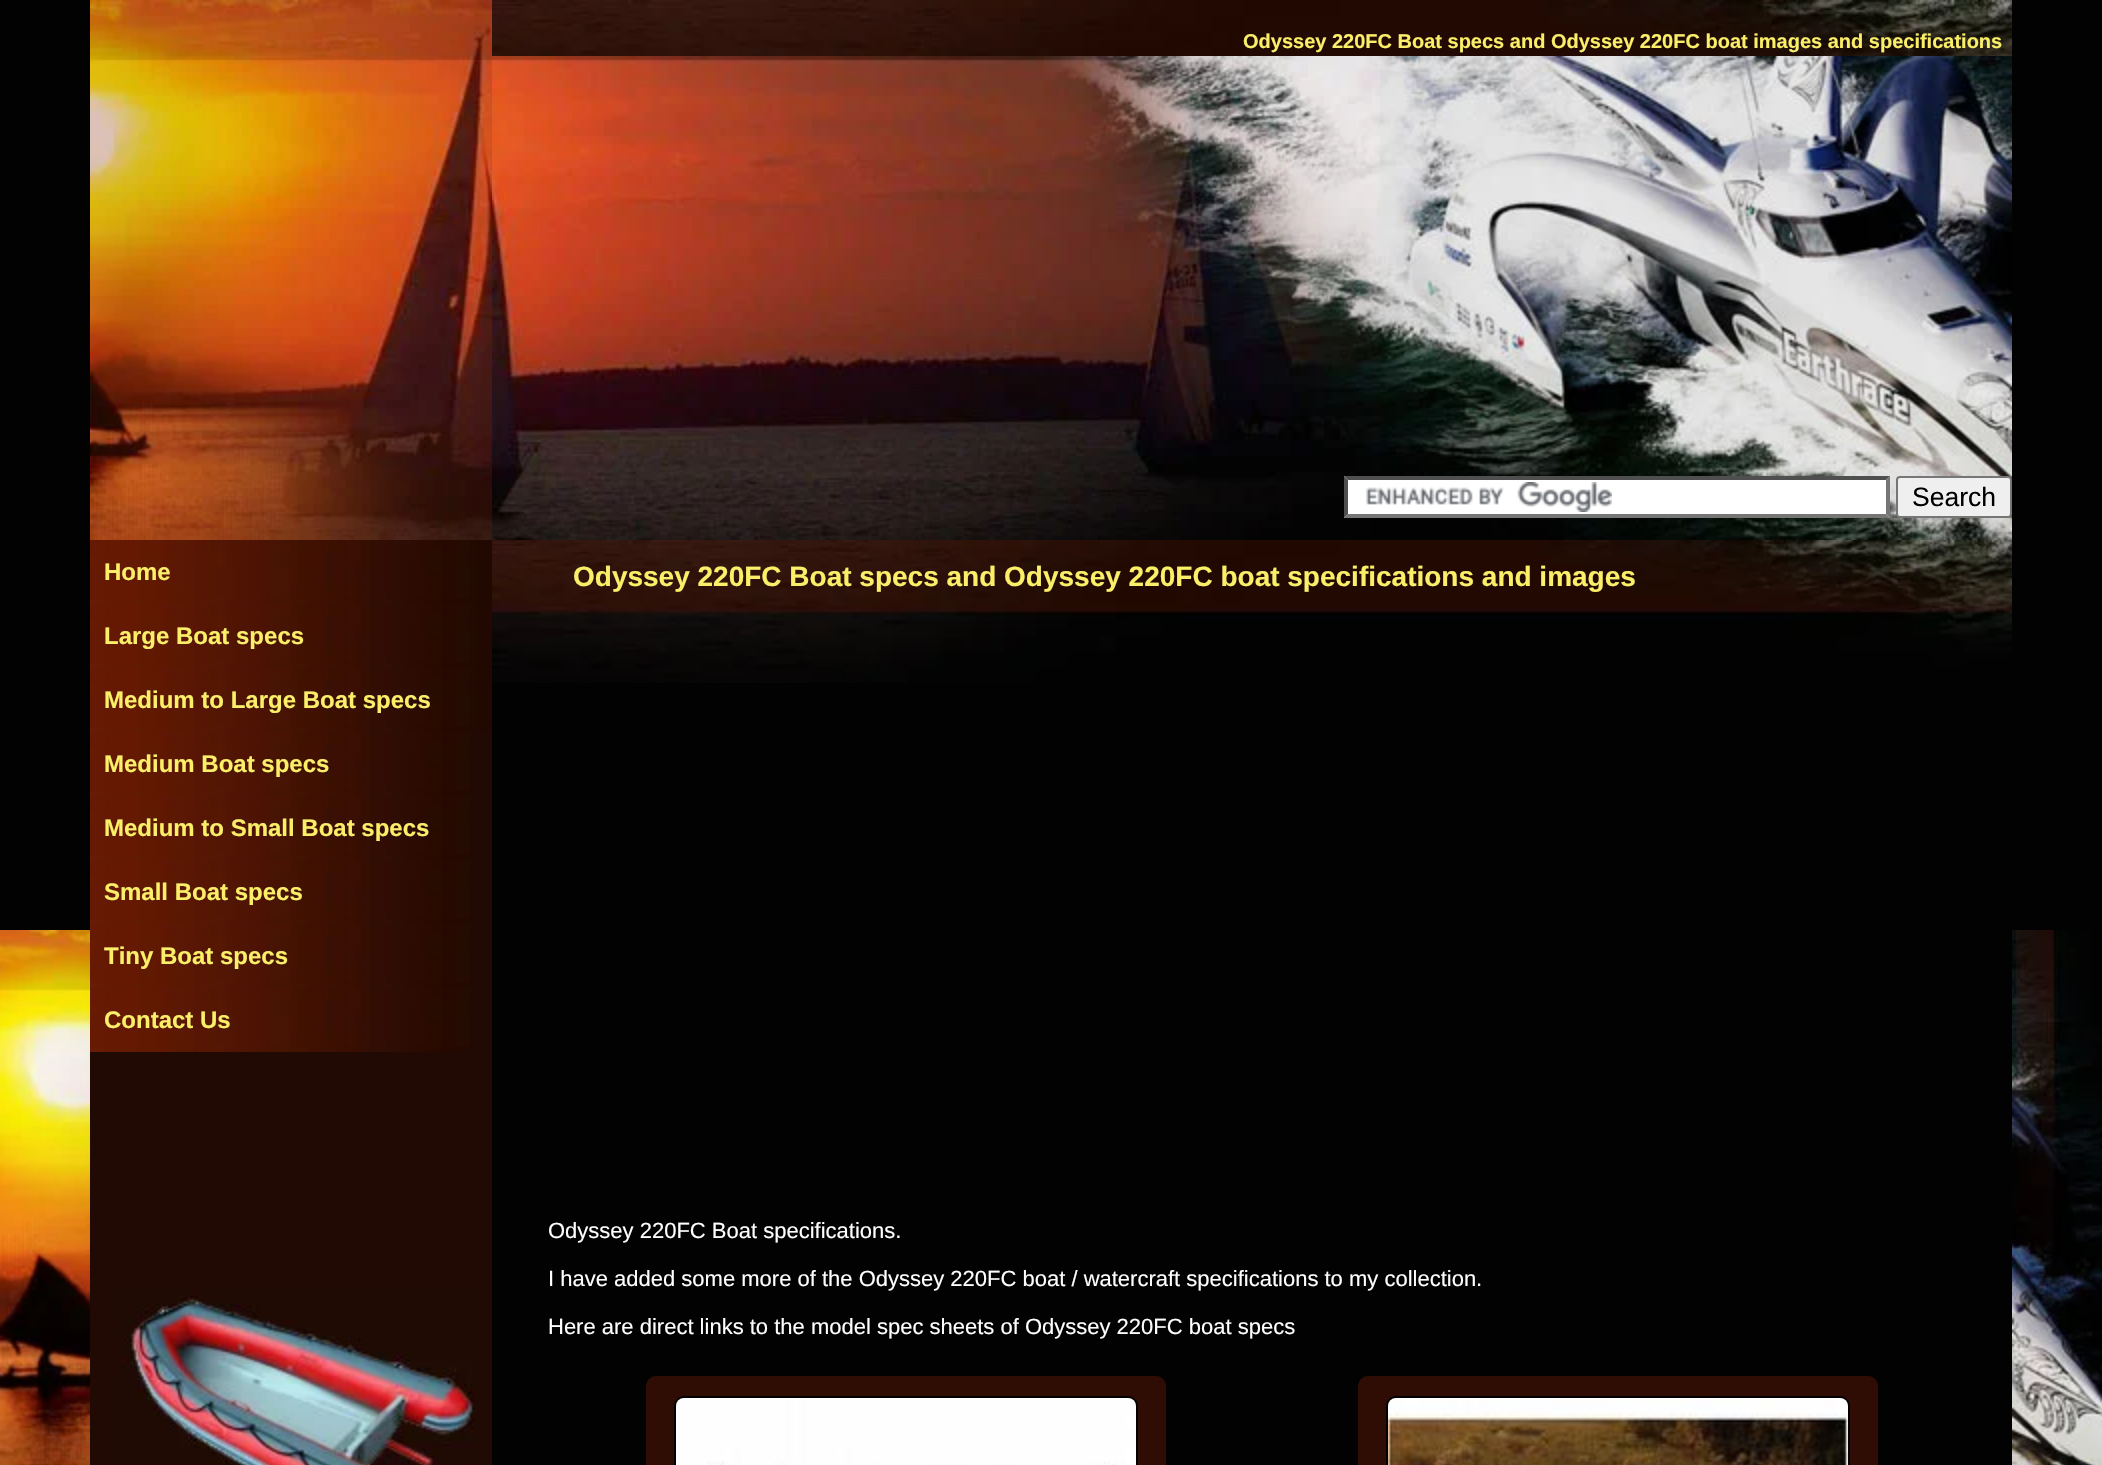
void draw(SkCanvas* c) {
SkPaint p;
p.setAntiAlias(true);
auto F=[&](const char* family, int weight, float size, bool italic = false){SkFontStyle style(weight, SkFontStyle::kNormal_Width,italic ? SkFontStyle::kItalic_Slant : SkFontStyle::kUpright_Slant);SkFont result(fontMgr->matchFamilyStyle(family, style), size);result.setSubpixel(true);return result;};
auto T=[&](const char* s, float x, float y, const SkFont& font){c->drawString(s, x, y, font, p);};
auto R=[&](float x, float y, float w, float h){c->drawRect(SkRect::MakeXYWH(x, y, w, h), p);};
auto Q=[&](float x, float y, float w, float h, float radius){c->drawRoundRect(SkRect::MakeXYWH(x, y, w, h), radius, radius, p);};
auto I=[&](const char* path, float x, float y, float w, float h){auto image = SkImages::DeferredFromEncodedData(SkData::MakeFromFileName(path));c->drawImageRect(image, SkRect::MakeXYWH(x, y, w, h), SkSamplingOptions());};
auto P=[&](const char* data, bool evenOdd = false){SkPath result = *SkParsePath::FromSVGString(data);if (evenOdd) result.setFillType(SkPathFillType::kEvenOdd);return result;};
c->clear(0xff020202);
p.setColor(0xff200a03);
R(90,732,402,733);
I("1.png",90,0,402,540);
I("2.png",90,540,402,64);
auto f1 = F("Liberation Sans",700,24);
p.setColor(0xfffbef69);
T("Home",104,580,f1);
I("2.png",90,604,402,64);
T("Large Boat specs",104,644,f1);
I("2.png",90,668,402,64);
T("Medium to Large Boat specs",104,708,f1);
I("3.png",90,732,379,64);
T("Medium Boat specs",104,772,f1);
I("3.png",90,796,379,64);
T("Medium to Small Boat specs",104,836,f1);
I("3.png",90,860,379,64);
T("Small Boat specs",104,900,f1);
I("3.png",90,924,379,64);
T("Tiny Boat specs",104,964,f1);
I("3.png",90,988,379,64);
T("Contact Us",104,1028,f1);
I("4.png",122,1289,353,176);
I("5.png",492,0,1520,56);
auto f2 = F("Liberation Sans",700,20);
T("Odyssey 220FC Boat specs and Odyssey 220FC boat images and specifications",1243,48,f2);
I("6.png",492,56,1520,484);
p.setColor(0xffffffff);
R(1344,476,546,42);
I("7.png",1366,482,246,30);
p.setColor(0xff4f4f4f);
c->drawPath(P("M1344 476h546l-4 4h-538z"),p);
p.setColor(0xff767676);
c->drawPath(P("M1890 476v42l-4-4v-34z"),p);
c->drawPath(P("M1890 518h-546l4-4h538z"),p);
p.setColor(0xff4f4f4f);
c->drawPath(P("M1344 518v-42l4 4v34z"),p);
p.setColor(0xffefefef);
c->drawRoundRect(SkRect::MakeXYWH(1897,477,114,40),3,3,p);
p.setStroke(true);
p.setStrokeWidth(2);
p.setColor(0xff767676);
c->drawRoundRect(SkRect::MakeXYWH(1897,477,114,40),3,3,p);
auto f3 = F("Liberation Sans",400,26.5);
p.setStroke(false);
p.setColor(0xff000000);
T("Search",1912,506,f3);
I("8.png",492,540,1520,143);
auto f4 = F("Liberation Sans",700,28);
p.setColor(0xfffbef69);
T("Odyssey 220FC Boat specs and Odyssey 220FC boat specifications and images",573,586,f4);
auto f5 = F("Liberation Sans",400,22);
p.setColor(0xffffffff);
T("Odyssey 220FC Boat specifications.",548,1238,f5);
T("I have added some more of the Odyssey 220FC boat / watercraft specifications to my collection.",548,1286,f5);
T("Here are direct links to the model spec sheets of Odyssey 220FC boat specs",548,1334,f5);
p.setColor(0xff2f0d04);
Q(646,1376,520,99,10);
p.setStroke(true);
p.setColor(0xff000000);
c->drawRoundRect(SkRect::MakeXYWH(675,1397,462,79),9,9,p);
I("9.png",676,1398,460,67);
p.setStroke(false);
p.setColor(0xff2f0d04);
Q(1358,1376,520,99,10);
p.setStroke(true);
p.setColor(0xff000000);
c->drawRoundRect(SkRect::MakeXYWH(1387,1397,462,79),9,9,p);
I("10.png",1388,1398,460,67);
I("11.png",0,930,90,535);
I("12.png",2012,930,90,535);
}
